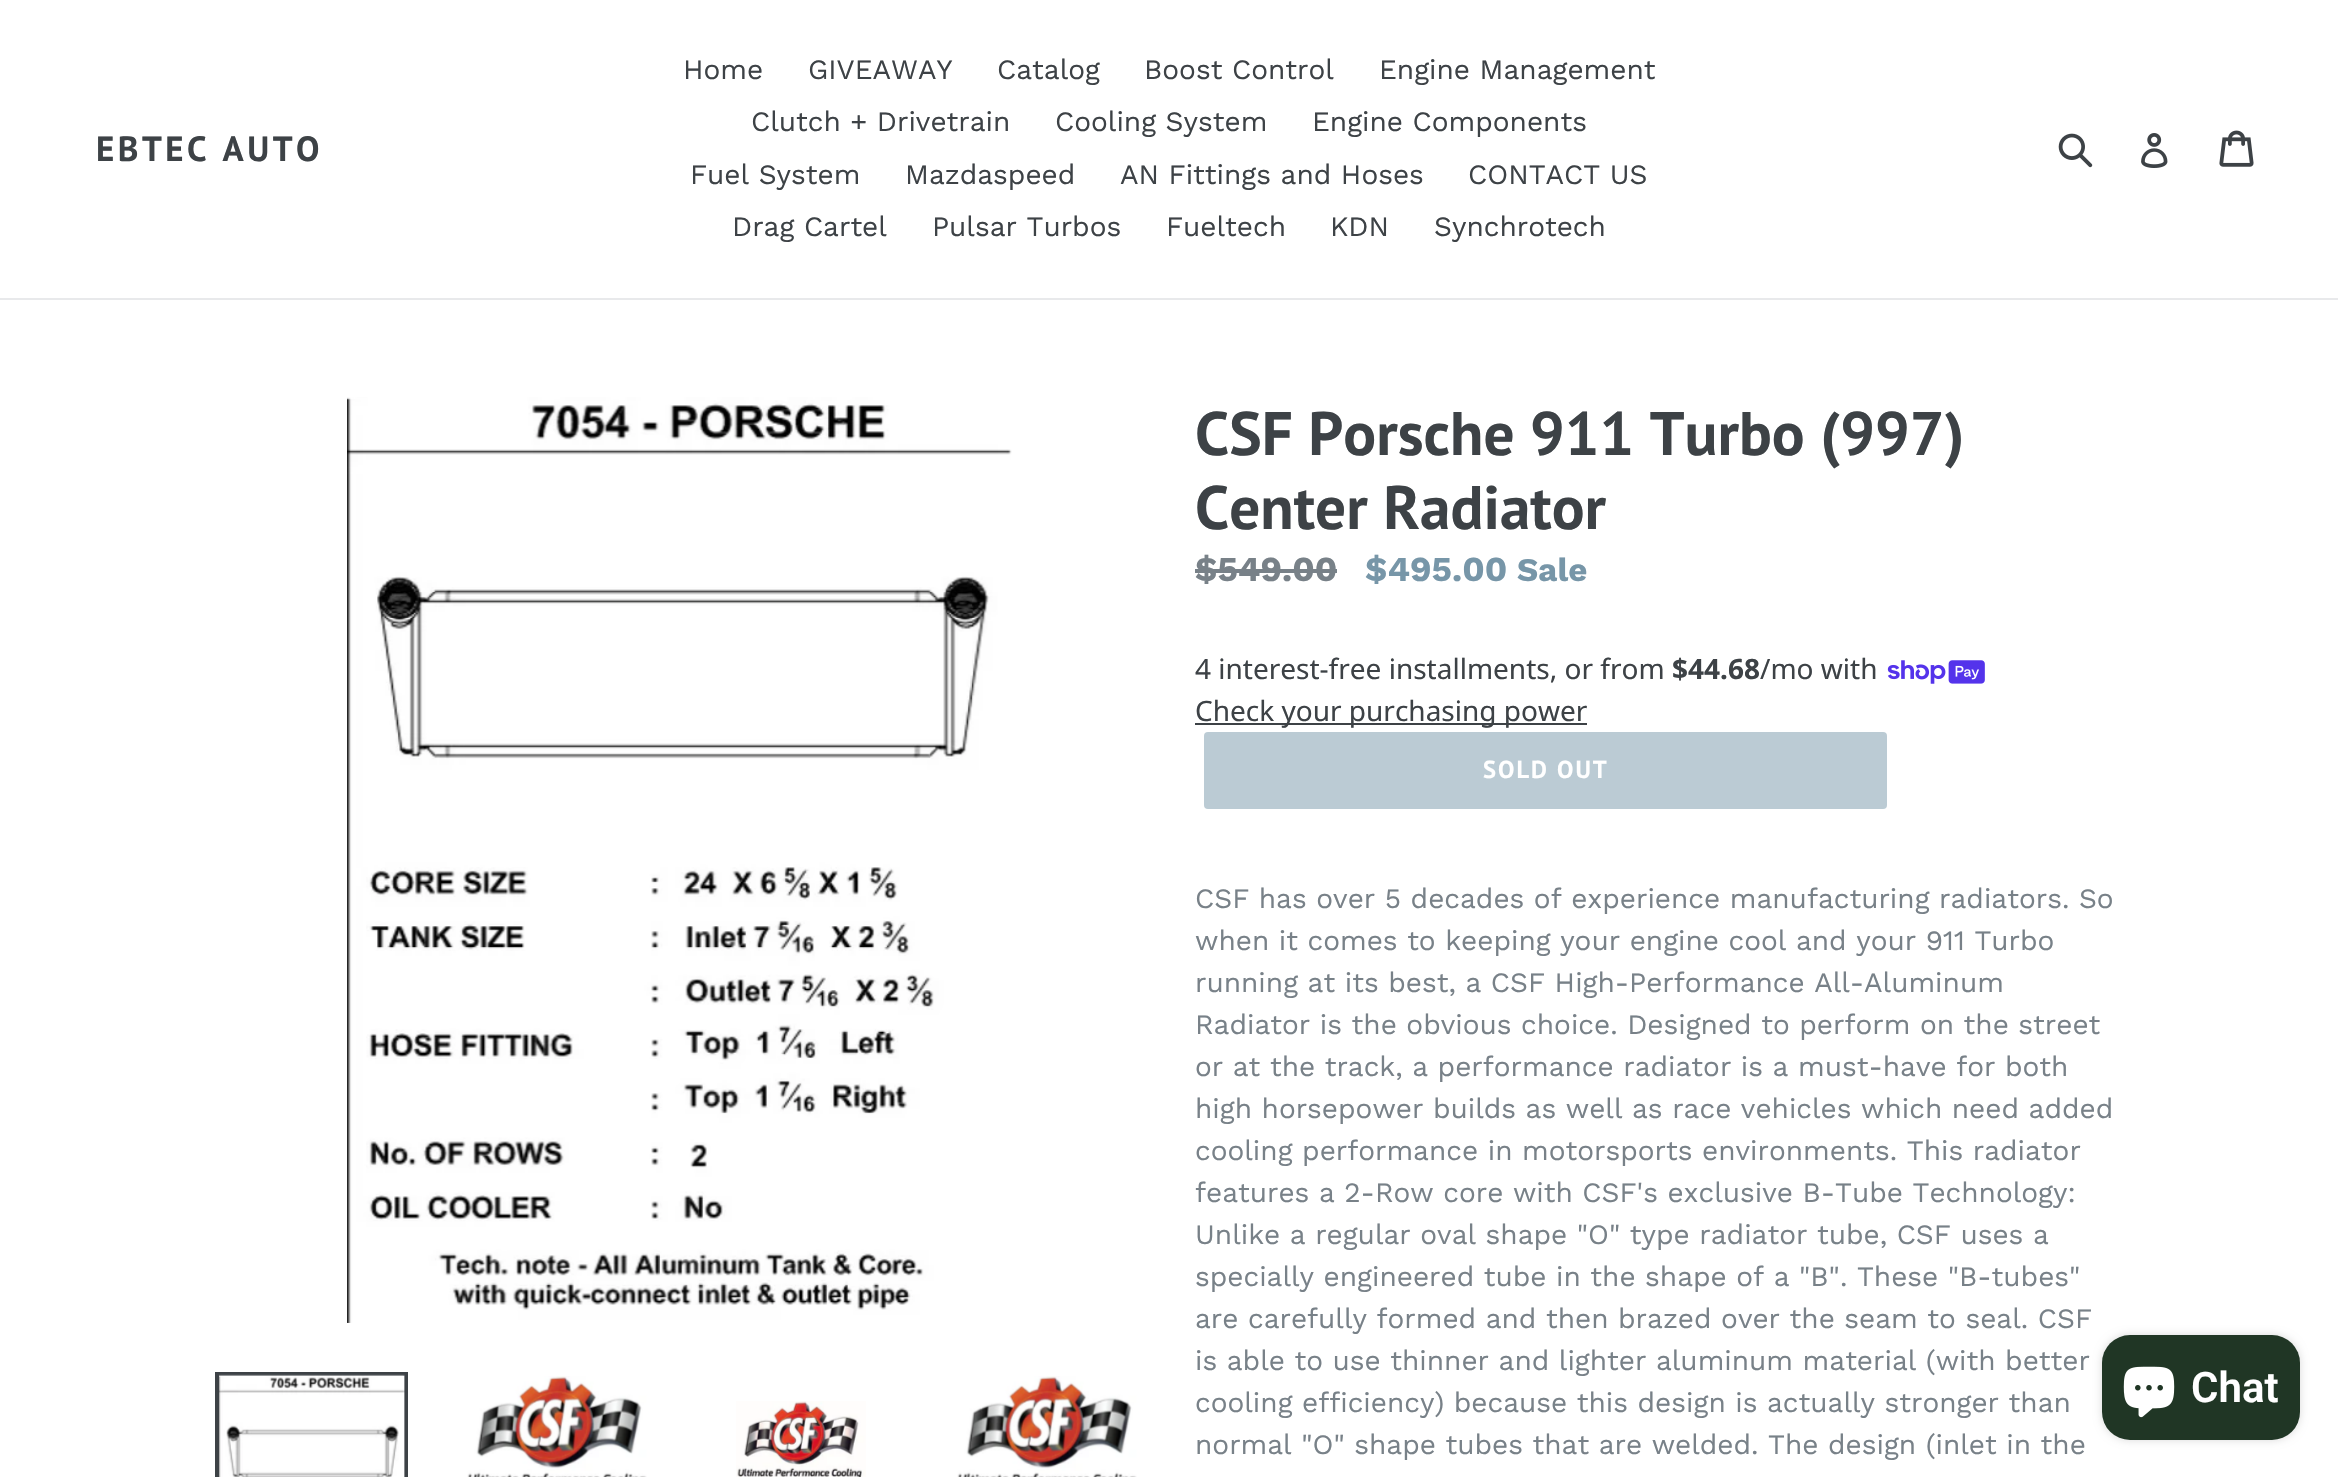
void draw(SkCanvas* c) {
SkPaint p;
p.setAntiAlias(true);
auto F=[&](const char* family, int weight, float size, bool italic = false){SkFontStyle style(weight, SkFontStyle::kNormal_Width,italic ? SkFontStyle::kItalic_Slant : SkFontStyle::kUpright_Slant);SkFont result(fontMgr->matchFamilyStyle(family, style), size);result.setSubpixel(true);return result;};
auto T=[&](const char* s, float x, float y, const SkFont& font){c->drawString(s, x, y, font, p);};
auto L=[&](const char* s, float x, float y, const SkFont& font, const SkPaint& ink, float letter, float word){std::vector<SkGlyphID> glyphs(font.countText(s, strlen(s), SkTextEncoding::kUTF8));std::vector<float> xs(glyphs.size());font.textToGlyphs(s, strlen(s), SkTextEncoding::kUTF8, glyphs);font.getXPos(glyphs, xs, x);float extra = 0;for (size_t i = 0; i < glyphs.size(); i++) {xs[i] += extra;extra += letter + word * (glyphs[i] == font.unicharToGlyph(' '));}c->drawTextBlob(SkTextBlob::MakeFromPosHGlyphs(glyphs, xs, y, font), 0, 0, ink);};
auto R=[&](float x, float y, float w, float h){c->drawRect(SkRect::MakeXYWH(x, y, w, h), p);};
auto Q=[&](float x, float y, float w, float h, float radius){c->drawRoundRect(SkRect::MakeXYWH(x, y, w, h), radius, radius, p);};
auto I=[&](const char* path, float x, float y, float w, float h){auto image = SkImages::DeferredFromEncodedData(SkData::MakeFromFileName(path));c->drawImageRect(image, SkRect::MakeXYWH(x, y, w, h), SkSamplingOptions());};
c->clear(0xffffffff);
p.setColor(0xffe8e9eb);
R(0,298,2338,2);
auto f1 = F("PT Sans",700,35);
p.setColor(0xff3d4246);
L("EBTEC AUTO",96,161,f1,p,3.5,0);
auto f2 = F("Work Sans",400,28);
T("Home",683,79,f2);
T("GIVEAWAY",808,79,f2);
T("Catalog",997,79,f2);
T("Boost Control",1144,79,f2);
T("Engine Management",1379,79,f2);
T("Clutch + Drivetrain",751,131,f2);
T("Cooling System",1055,131,f2);
T("Engine Components",1312,131,f2);
T("Fuel System",690,184,f2);
T("Mazdaspeed",905,184,f2);
T("AN Fittings and Hoses",1120,184,f2);
T("CONTACT US",1468,184,f2);
T("Drag Cartel",732,236,f2);
T("Pulsar Turbos",932,236,f2);
T("Fueltech",1166,236,f2);
T("KDN",1330,236,f2);
T("Synchrotech",1434,236,f2);
I("1.png",2058,133,35,35);
I("2.png",2141,133,27,35);
I("3.png",2219,130,35,37);
I("4.png",347,397,665,926);
p.setStroke(true);
p.setStrokeWidth(4);
c->drawRect(SkRect::MakeXYWH(217,1374,189,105),p);
I("5.png",219,1374,186,103);
I("6.png",467,1376,180,101);
I("7.png",736,1401,130,76);
I("8.png",957,1376,180,101);
auto f3 = F("PT Sans",700,61.25);
p.setStroke(false);
T("CSF Porsche 911 Turbo (997)",1195,455,f3);
T("Center Radiator",1195,529,f3);
auto f4 = F("Work Sans",700,35);
p.setColor(0xff788188);
T("$549.00",1195,581,f4);
R(1195,569,142,4);
p.setColor(0xff7796a8);
T("$495.00",1365,581,f4);
auto f5 = F("Work Sans",700,33);
T("Sale",1517,581,f5);
auto f6 = F("Noto Sans",400,28);
p.setColor(0xff3d4246);
T("4 interest-free installments, or from",1195,679,f6);
auto f7 = F("Noto Sans",700,28);
T("$44.68",1672,679,f7);
T("/mo with",1760,679,f6);
I("9.png",1887,660,98,24);
R(1195,723,392,2);
T("Check your purchasing power",1195,721,f6);
p.setColor(0xffbbcbd4);
Q(1204,732,683,77,4);
auto f8 = F("PT Sans",700,24.5);
p.setColor(0xffffffff);
L("SOLD OUT",1483,778,f8,p,2,0);
p.setColor(0xff788188);
T("CSF has over 5 decades of experience manufacturing radiators. So",1195,908,f2);
T("when it comes to keeping your engine cool and your 911 Turbo",1195,950,f2);
T("running at its best, a CSF High-Performance All-Aluminum",1195,992,f2);
T("Radiator is the obvious choice. Designed to perform on the street",1195,1034,f2);
T("or at the track, a performance radiator is a must-have for both",1195,1076,f2);
T("high horsepower builds as well as race vehicles which need added",1195,1118,f2);
T("cooling performance in motorsports environments. This radiator",1195,1160,f2);
T("features a 2-Row core with CSF's exclusive B-Tube Technology:",1195,1202,f2);
T("Unlike a regular oval shape \"O\" type radiator tube, CSF uses a",1195,1244,f2);
T("specially engineered tube in the shape of a \"B\". These \"B-tubes\"",1195,1286,f2);
T("are carefully formed and then brazed over the seam to seal. CSF",1195,1328,f2);
T("is able to use thinner and lighter aluminum material (with better",1195,1370,f2);
T("cooling efficiency) because this design is actually stronger than",1195,1412,f2);
T("normal \"O\" shape tubes that are welded. The design (inlet in the",1195,1454,f2);
p.setColor(0x26000000);
p.setMaskFilter(SkMaskFilter::MakeBlur(kNormal_SkBlurStyle, 4.5));
c->drawRoundRect(SkRect::MakeXYWH(2102,1335,198,105),28,28,p);
p.setMaskFilter(nullptr);
p.setColor(0xff203625);
Q(2102,1335,198,105,28);
I("10.png",2123,1366,52,52);
auto f9 = F("Roboto",600,42);
p.setColor(0xffffffff);
T("Chat",2191,1402,f9);
}
